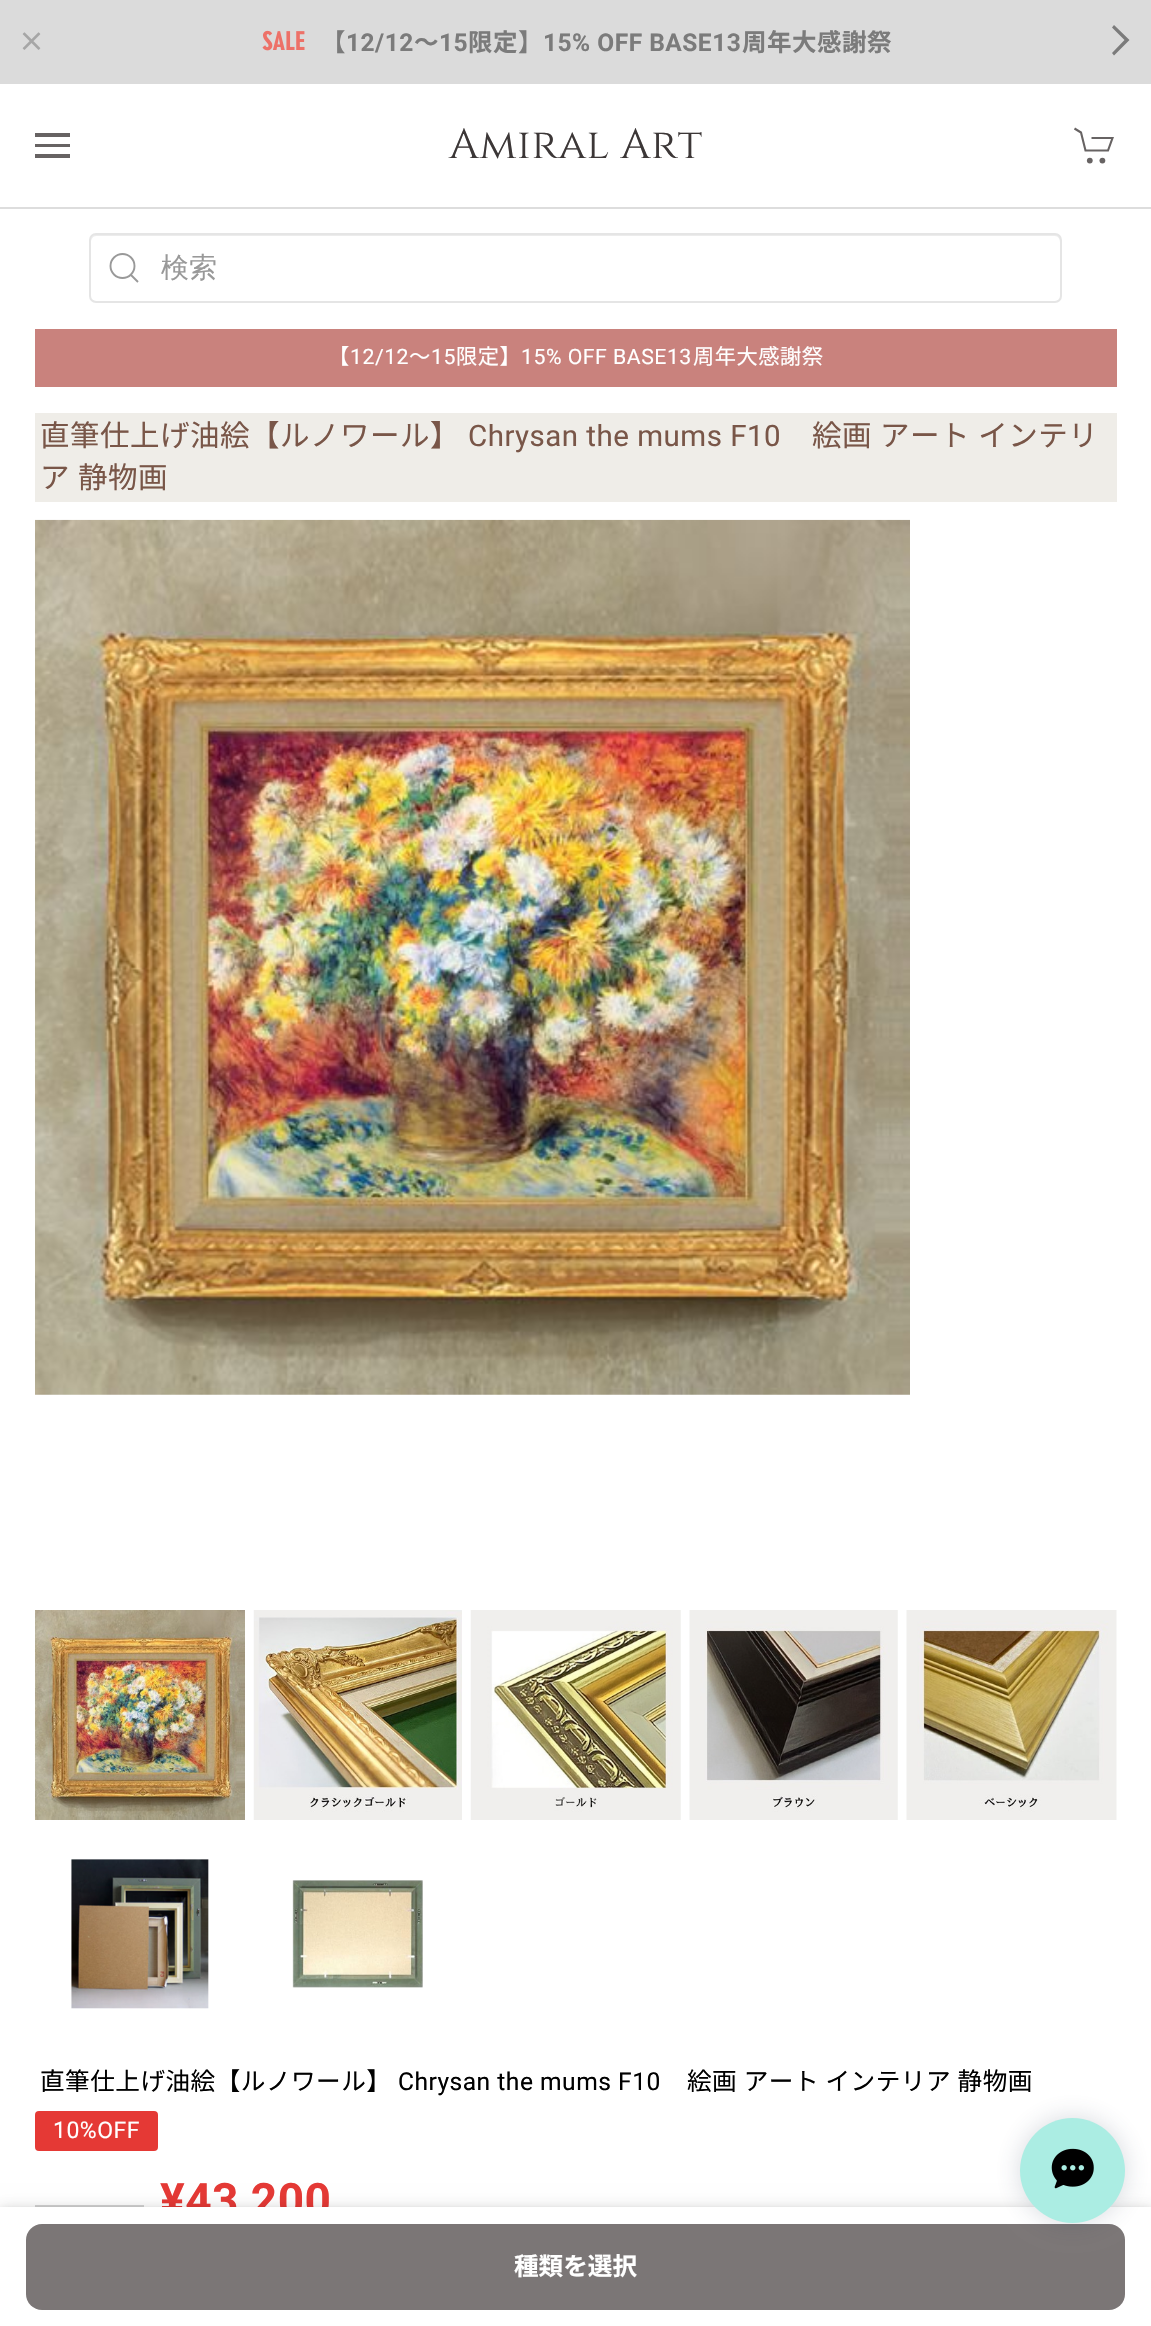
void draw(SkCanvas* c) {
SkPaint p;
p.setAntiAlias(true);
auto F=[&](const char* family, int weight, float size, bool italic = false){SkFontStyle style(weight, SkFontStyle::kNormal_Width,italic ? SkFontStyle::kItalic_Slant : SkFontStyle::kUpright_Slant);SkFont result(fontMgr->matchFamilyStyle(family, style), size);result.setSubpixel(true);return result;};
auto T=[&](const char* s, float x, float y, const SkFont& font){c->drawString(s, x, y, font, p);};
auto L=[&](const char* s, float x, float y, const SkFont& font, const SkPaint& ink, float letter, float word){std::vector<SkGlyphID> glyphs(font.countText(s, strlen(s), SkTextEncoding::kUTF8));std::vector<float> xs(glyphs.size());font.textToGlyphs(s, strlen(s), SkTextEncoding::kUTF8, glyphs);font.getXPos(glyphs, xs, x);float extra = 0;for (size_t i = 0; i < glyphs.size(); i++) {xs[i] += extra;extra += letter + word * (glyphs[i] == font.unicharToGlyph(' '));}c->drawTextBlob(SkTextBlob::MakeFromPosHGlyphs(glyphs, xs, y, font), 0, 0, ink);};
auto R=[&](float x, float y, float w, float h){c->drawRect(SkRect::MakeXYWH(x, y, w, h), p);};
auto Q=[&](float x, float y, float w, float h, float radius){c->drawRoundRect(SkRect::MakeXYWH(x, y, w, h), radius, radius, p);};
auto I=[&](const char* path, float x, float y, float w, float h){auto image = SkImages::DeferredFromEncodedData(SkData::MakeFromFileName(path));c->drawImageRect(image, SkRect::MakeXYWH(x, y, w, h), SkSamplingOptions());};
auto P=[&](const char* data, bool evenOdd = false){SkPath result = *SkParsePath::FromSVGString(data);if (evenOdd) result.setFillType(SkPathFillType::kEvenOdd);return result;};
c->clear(0xffffffff);
p.setColor(0xffdddddd);
R(0,207,1151,2);
p.setColor(0xffdbdbdb);
R(0,0,1151,84);
I("1.png",22,32,19,18);
I("2.png",262,30,43,21);
auto f1 = F("Noto Sans JP",700,24.5);
p.setColor(0xff7b7b7b);
L("【",321,51,f1,p,.5,0);
auto f2 = F("Roboto",700,24.5);
L("12/12",346,51,f2,p,.5,0);
L("～",414,51,f1,p,.5,0);
L("15",439,51,f2,p,.5,0);
L("限定】",468,51,f1,p,.5,0);
L("15% OFF BASE13",543,51,f2,p,.5,0);
L("周年大感謝祭",742,51,f1,p,.5,0);
c->drawPath(P("M1124.5 40l-12.5-12.5l2-2.5l15.5 15l-15.5 15.5l-2-2.5z"),p);
p.setColor(0xff676363);
R(35,144,35,3);
R(35,133,35,4);
R(35,154,35,4);
auto f3 = F("Cinzel",400,42);
p.setColor(0xff3c3737);
L("Amiral Art",449,158,f3,p,.5,0);
p.setStroke(true);
p.setStrokeWidth(2.1);
p.setColor(0xff676363);
c->drawPath(P("M1074.5 128.5l6.5 4l4.5 18h22.5l4.5-12.5h-21"),p);
p.setStroke(false);
c->drawCircle(1089.8,160.6,2.9,p);
c->drawCircle(1102.4,160.6,2.9,p);
p.setColor(0xffececec);
c->drawPath(P("M96 236h959c3 0 5 3 5 6v57c1-1 1-2 1-3v-56c0-3-2-5-5-5h-960c-3 0-5 2-5 5v2c0-3 2-6 5-6z"),p);
p.setStroke(true);
p.setStrokeWidth(2);
p.setColor(0xffe5e5e5);
c->drawRoundRect(SkRect::MakeXYWH(90,234,971,68),6,6,p);
p.setStrokeWidth(1.9);
p.setColor(0xff999999);
c->drawCircle(122.5,266,12,p);
c->drawPath(P("M131 275l7 7z"),p);
auto f4 = F("WenQuanYi Zen Hei",500,28);
p.setStroke(false);
T("検索",161,277,f4);
p.setColor(0xffc9827d);
R(35,329,1082,58);
auto f5 = F("Noto Sans JP",400,21.25);
p.setColor(0xffffffff);
L("【",328,364,f5,p,.5,0);
auto f6 = F("Roboto",400,21.25);
L("12/12",350,364,f6,p,.5,0);
L("～",409,364,f5,p,.5,0);
L("15",431,364,f6,p,.5,0);
L("限定】",456,364,f5,p,.5,0);
L("15% OFF BASE13",521,364,f6,p,.5,0);
L("周年大感謝祭",693,364,f5,p,.5,0);
p.setColor(0xffefede8);
R(35,413,1082,89);
auto f7 = F("Noto Sans JP",400,29.5);
p.setColor(0xff795648);
L("直筆仕上げ油絵【ルノワール】",40,446,f7,p,.5,0);
auto f8 = F("Roboto",400,29.5);
L("Chrysan the mums F10",468,446,f8,p,.5,0);
L("絵画 アート インテリ",812,446,f7,p,.5,1);
L("ア 静物画",40,488,f7,p,.5,1);
I("3.png",35,519,875,876);
I("4.png",35,1610,210,210);
I("5.png",253,1610,209,210);
I("6.png",470,1610,211,210);
I("7.png",689,1610,209,210);
I("8.png",906,1610,211,210);
I("9.png",71,1859,138,150);
I("10.png",292,1880,131,108);
auto f9 = F("Noto Sans JP",400,24.6);
p.setColor(0xff000000);
L("直筆仕上げ油絵【ルノワール】",40,2090,f9,p,.5,0);
auto f10 = F("Roboto",400,24.6);
L("Chrysan the mums F10",398,2090,f10,p,.5,0);
L("絵画 アート インテリア 静物画",687,2090,f9,p,.5,.5);
p.setColor(0xffe53935);
Q(35,2111,123,40,4);
auto f11 = F("Roboto",400,23);
p.setColor(0xffffffff);
L("10%OFF",53,2138,f11,p,.5,0);
p.setColor(0xffd3d3d3);
R(35,2205,109,2);
auto f12 = F("Roboto",700,46);
p.setColor(0xffe53935);
L("¥43,200",160,2216,f12,p,.5,0);
p.setColor(0x1f000000);
p.setMaskFilter(SkMaskFilter::MakeBlur(kNormal_SkBlurStyle, 9));
c->drawRect(SkRect::MakeXYWH(0,2210,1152,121),p);
p.setMaskFilter(nullptr);
p.setColor(0x29000000);
p.setMaskFilter(SkMaskFilter::MakeBlur(kNormal_SkBlurStyle, 4.5));
c->drawRect(SkRect::MakeXYWH(0,2210,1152,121),p);
p.setMaskFilter(nullptr);
p.setColor(0xffffffff);
R(0,2207,1151,119);
p.setColor(0xff7b7676);
Q(26,2224,1099,86,16);
p.setColor(0x33334258);
p.setMaskFilter(SkMaskFilter::MakeBlur(kNormal_SkBlurStyle, 13));
c->drawRoundRect(SkRect::MakeXYWH(1020,2118,105,105),52.5,52.5,p);
p.setMaskFilter(nullptr);
p.setColor(0xffabede3);
c->drawCircle(1072.5,2170.5,52.5,p);
I("11.png",1051,2148,43,41);
auto f13 = F("Noto Sans JP",700,24.6);
p.setColor(0xffffffff);
T("種類を選択",514,2275,f13);
}
